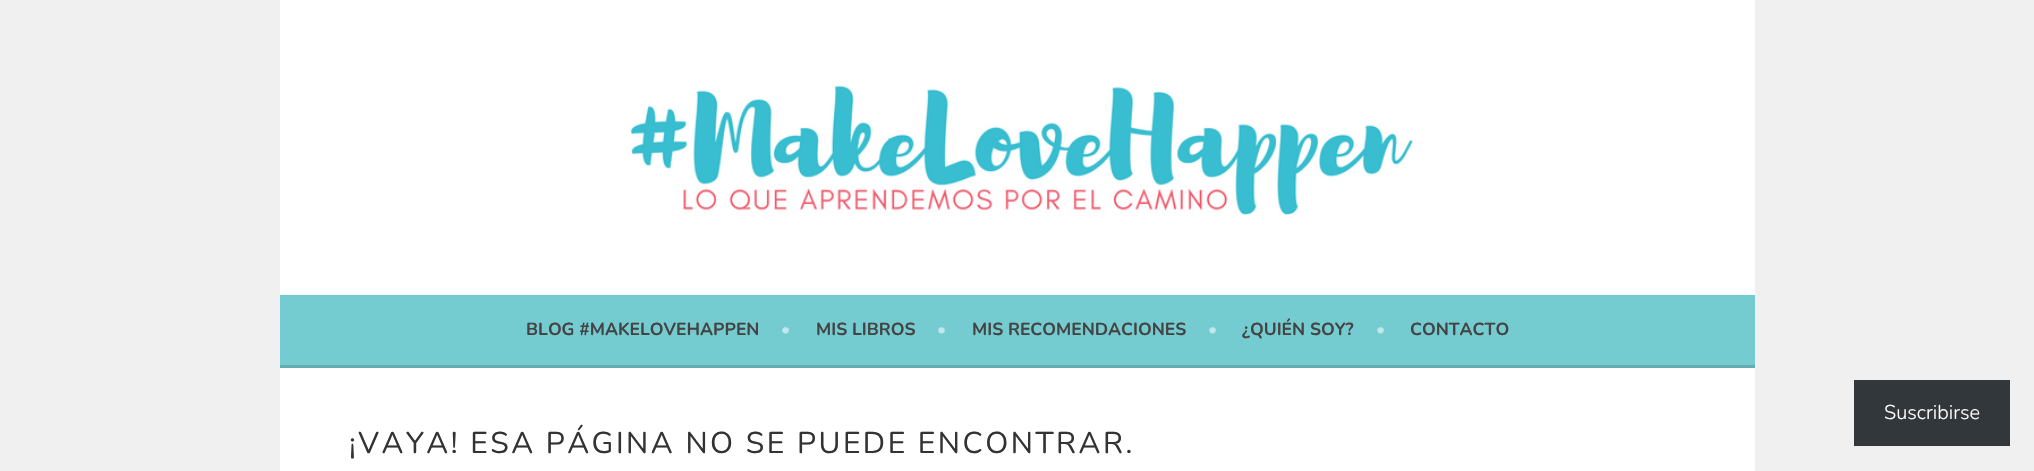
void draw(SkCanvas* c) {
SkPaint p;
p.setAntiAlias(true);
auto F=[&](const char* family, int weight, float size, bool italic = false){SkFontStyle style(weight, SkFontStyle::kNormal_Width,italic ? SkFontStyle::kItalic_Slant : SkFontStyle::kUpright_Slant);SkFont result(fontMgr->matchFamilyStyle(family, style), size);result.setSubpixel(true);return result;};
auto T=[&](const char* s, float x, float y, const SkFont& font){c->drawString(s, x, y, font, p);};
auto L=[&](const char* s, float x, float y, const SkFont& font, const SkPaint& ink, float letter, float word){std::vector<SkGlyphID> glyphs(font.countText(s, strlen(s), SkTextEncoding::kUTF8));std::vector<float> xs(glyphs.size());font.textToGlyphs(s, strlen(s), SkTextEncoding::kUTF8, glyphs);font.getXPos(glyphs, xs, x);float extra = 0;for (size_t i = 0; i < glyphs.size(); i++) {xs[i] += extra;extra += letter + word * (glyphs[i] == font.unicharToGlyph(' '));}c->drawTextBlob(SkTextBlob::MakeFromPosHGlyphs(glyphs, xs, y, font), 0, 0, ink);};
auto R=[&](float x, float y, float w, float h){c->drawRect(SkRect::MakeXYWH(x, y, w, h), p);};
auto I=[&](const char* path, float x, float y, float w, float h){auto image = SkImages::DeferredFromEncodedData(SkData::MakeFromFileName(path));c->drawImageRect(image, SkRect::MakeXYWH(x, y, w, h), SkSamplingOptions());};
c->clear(0xfff0f0f0);
p.setColor(0xffffffff);
R(280,0,1475,295);
I("1.png",630,86,784,130);
p.setColor(0xff74ccd1);
R(280,295,1475,70);
p.setColor(0xff63adb2);
R(280,365,1475,3);
auto f1 = F("Nunito",700,17.5);
p.setColor(0xff444444);
T("BLOG #MAKELOVEHAPPEN",526,335,f1);
p.setColor(0xffc1e8ea);
T("•",781,335,f1);
p.setColor(0xff444444);
T("MIS LIBROS",816,335,f1);
p.setColor(0xffc1e8ea);
T("•",937,335,f1);
p.setColor(0xff444444);
T("MIS RECOMENDACIONES",972,335,f1);
p.setColor(0xffc1e8ea);
T("•",1208,335,f1);
p.setColor(0xff444444);
T("¿QUIÉN SOY?",1242,335,f1);
p.setColor(0xffc1e8ea);
T("•",1376,335,f1);
p.setColor(0xff444444);
T("CONTACTO",1410,335,f1);
p.setColor(0xffffffff);
R(280,368,1475,103);
auto f2 = F("Nunito",400,30);
p.setColor(0xff333333);
L("¡VAYA! ESA PÁGINA NO SE PUEDE ENCONTRAR.",349,453,f2,p,2.5,0);
p.setColor(0xff32373c);
R(1854,380,156,66);
auto f3 = F("Nunito",300,20);
p.setColor(0xffffffff);
T("Suscribirse",1884,419,f3);
}
